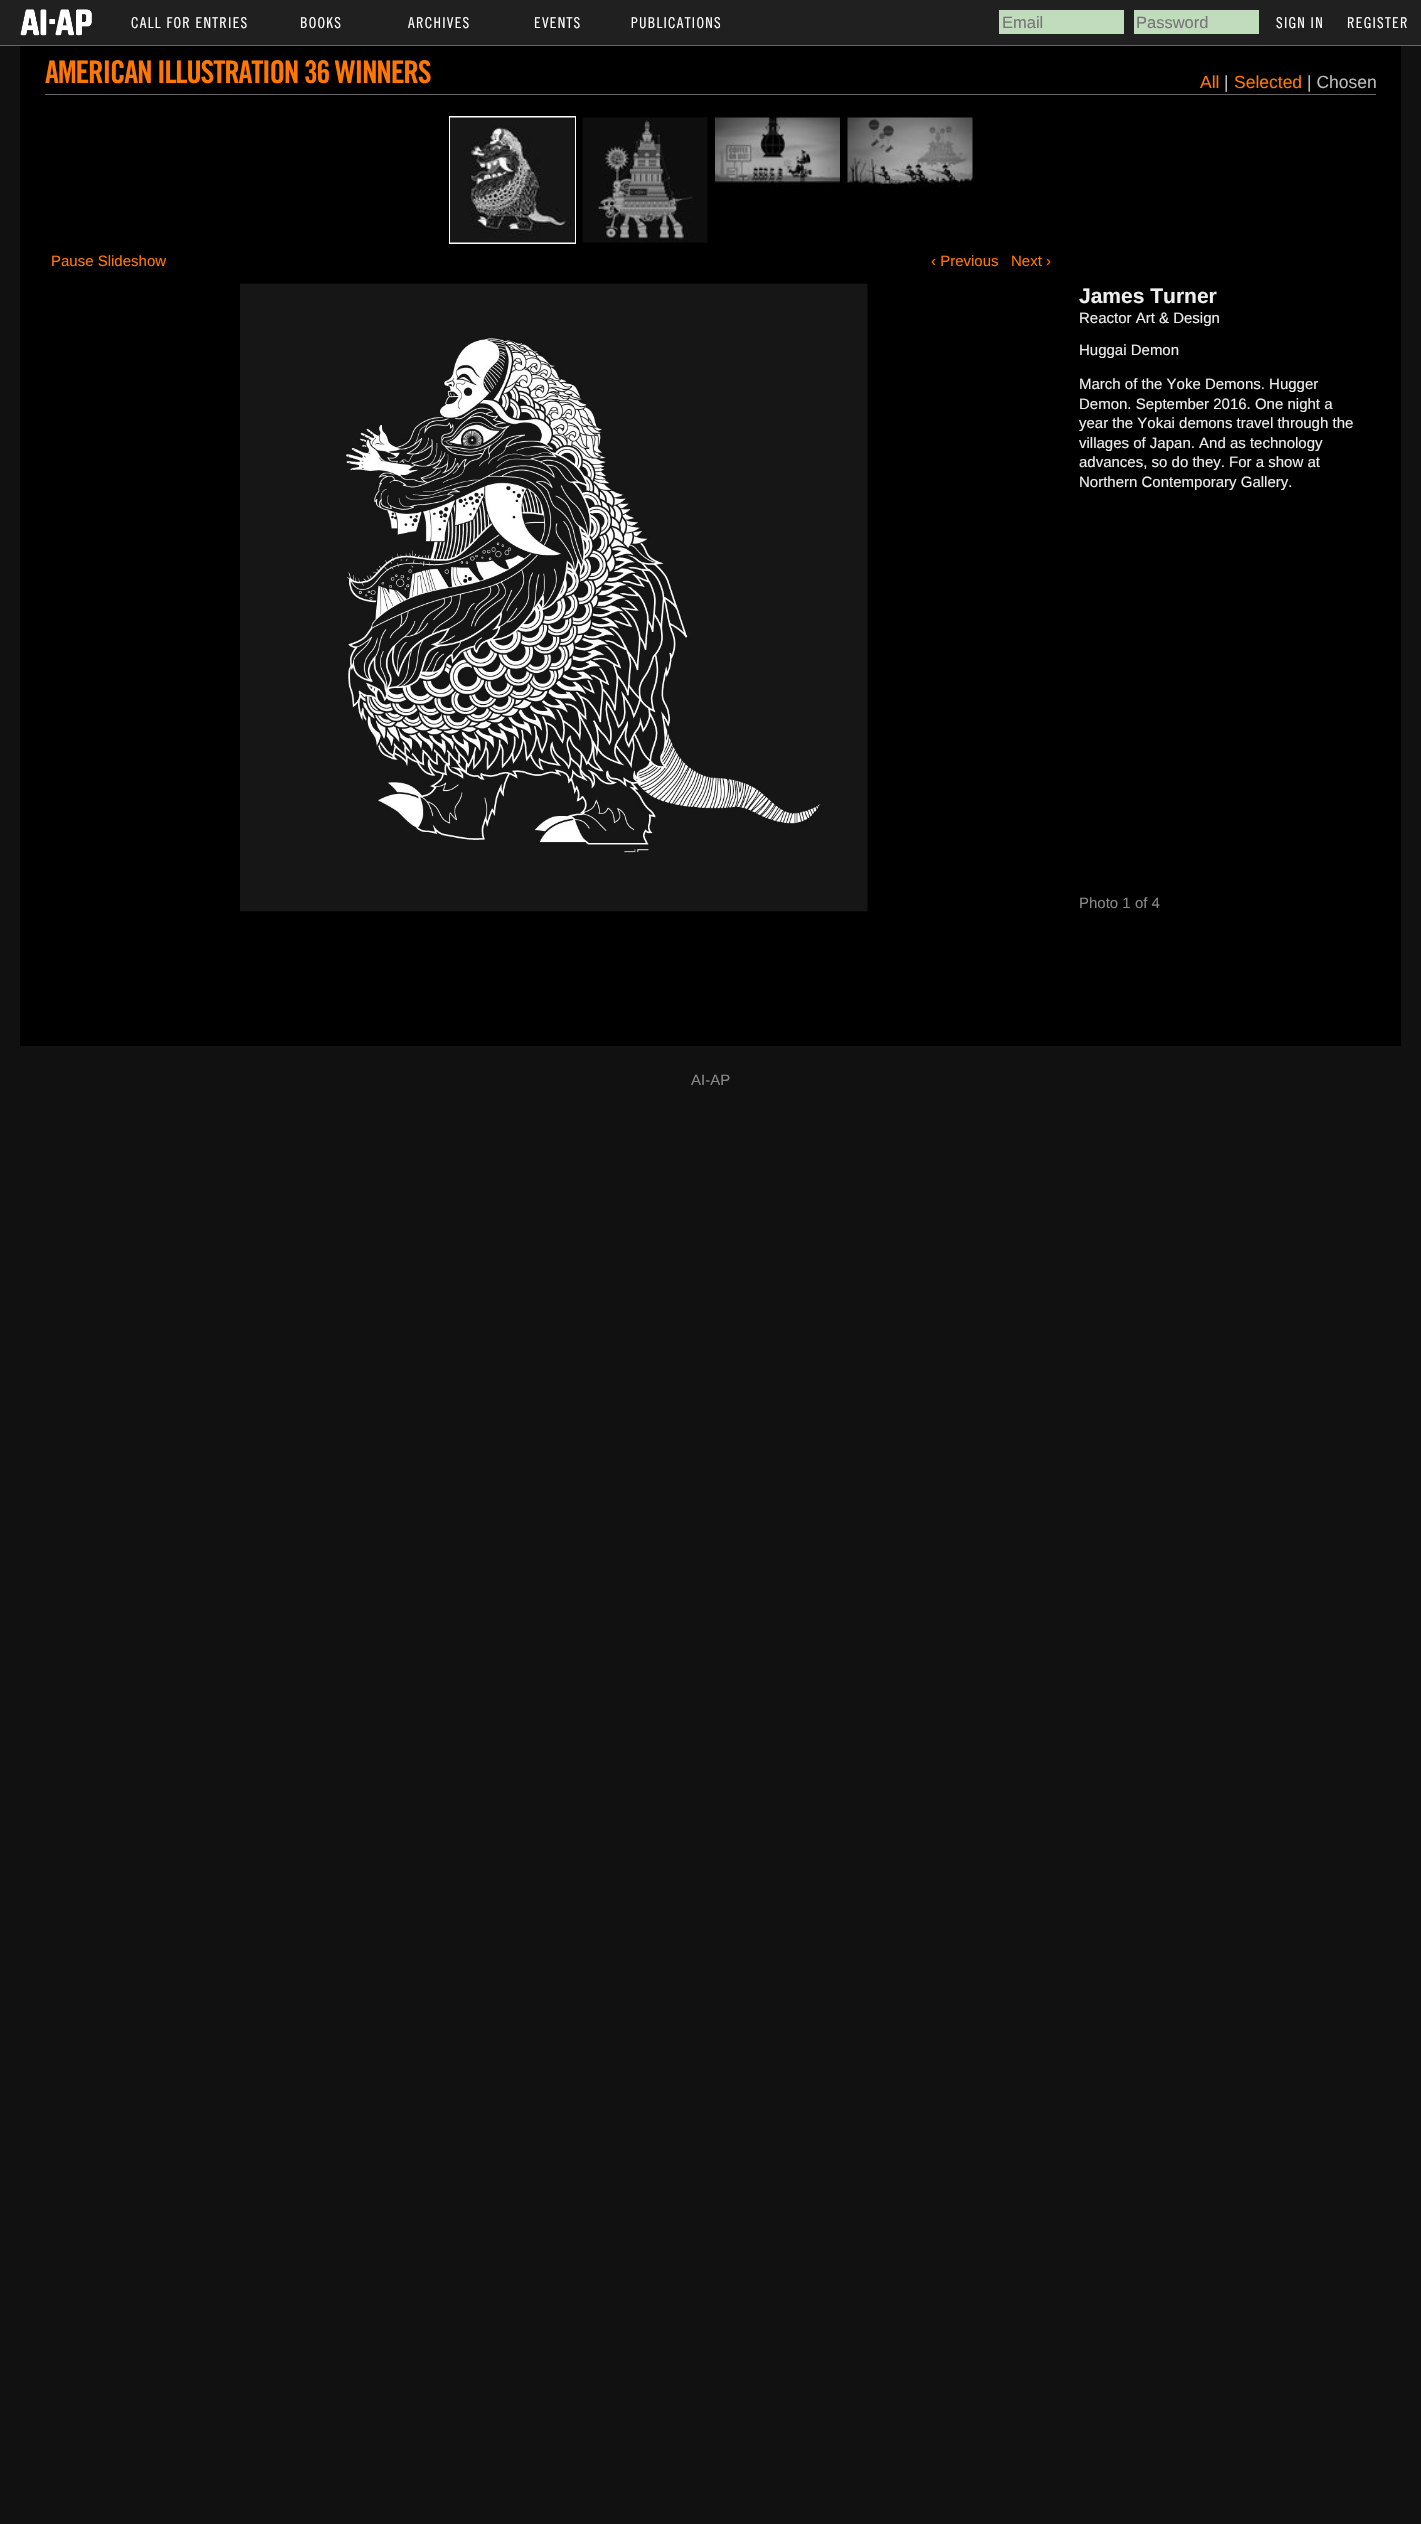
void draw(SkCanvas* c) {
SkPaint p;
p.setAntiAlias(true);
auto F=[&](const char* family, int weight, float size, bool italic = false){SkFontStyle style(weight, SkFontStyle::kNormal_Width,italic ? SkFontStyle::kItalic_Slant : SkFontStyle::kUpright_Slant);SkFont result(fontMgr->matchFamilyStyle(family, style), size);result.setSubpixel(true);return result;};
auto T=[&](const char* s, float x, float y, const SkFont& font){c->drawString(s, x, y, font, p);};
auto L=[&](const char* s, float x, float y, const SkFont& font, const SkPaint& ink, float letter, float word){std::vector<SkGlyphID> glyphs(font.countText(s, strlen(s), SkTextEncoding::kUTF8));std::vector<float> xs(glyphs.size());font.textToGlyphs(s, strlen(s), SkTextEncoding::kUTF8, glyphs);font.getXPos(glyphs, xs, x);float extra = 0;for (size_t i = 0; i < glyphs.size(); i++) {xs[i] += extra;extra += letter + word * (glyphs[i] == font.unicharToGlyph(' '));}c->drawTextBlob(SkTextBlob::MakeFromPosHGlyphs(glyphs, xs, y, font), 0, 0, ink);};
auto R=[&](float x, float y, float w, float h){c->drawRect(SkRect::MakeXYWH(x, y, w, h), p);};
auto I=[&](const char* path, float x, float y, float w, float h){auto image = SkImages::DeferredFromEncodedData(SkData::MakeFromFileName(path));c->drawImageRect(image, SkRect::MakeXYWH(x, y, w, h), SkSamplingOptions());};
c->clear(0xff111111);
p.setColor(0xff202020);
R(0,0,1421,45);
I("1.png",20,9,72,27);
auto f1 = F("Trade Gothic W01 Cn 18",400,15);
p.setColor(0xffffffff);
L("CALL FOR ENTRIES",131,28,f1,p,1.25,0);
L("BOOKS",300,28,f1,p,1.25,0);
L("ARCHIVES",408,28,f1,p,1.25,0);
L("EVENTS",534,28,f1,p,1.25,0);
L("PUBLICATIONS",631,28,f1,p,1.25,0);
p.setColor(0xffc1dbbd);
R(999,10,125,24);
auto f2 = F("Liberation Sans",400,16.5);
p.setColor(0xff757575);
T("Email",1002,28,f2);
p.setColor(0xffc1dbbd);
R(1134,10,125,24);
p.setColor(0xff757575);
T("Password",1136,28,f2);
p.setColor(0xffffffff);
L("SIGN IN",1276,28,f1,p,1.25,0);
L("REGISTER",1347,28,f1,p,1.25,0);
p.setColor(0xff666666);
R(0,45,1421,1);
p.setColor(0xff000000);
R(20,46,1381,1000);
p.setColor(0xff666666);
R(45,94,1331,1);
auto f3 = F("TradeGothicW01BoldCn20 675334",700,31.25);
p.setColor(0xffff7700);
L("AMERICAN ILLUSTRATION 36 WINNERS",45,83,f3,p,-1.25,0);
auto f4 = F("Liberation Sans",400,17.5);
T("All",1200,88,f4);
p.setColor(0xffbbbbbb);
T("|",1224,88,f4);
p.setColor(0xffff7700);
T("Selected",1234,88,f4);
p.setColor(0xffbbbbbb);
T("| Chosen",1307,88,f4);
p.setColor(0xffffffff);
R(449,116,127,128);
I("2.png",450,117,125,126);
I("3.png",582,117,126,126);
I("4.png",715,117,125,69);
I("5.png",847,117,126,71);
auto f5 = F("Liberation Sans",400,15);
p.setColor(0xffff7700);
T("Pause Slideshow",51,266,f5);
T("‹ Previous",931,266,f5);
T("Next ›",1011,266,f5);
I("6.png",240,283,628,629);
auto f6 = F("Liberation Sans",700,21);
p.setColor(0xffeeeeee);
T("James Turner",1079,303,f6);
T("Reactor Art & Design",1079,323,f5);
T("Huggai Demon",1079,355,f5);
T("March of the Yoke Demons. Hugger",1079,389,f5);
T("Demon. September 2016. One night a",1079,409,f5);
T("year the Yokai demons travel through the",1079,428,f5);
T("villages of Japan. And as technology",1079,448,f5);
T("advances, so do they. For a show at",1079,467,f5);
T("Northern Contemporary Gallery.",1079,487,f5);
p.setColor(0xff888888);
T("Photo 1 of 4",1079,908,f5);
T("AI-AP",691,1085,f5);
}
